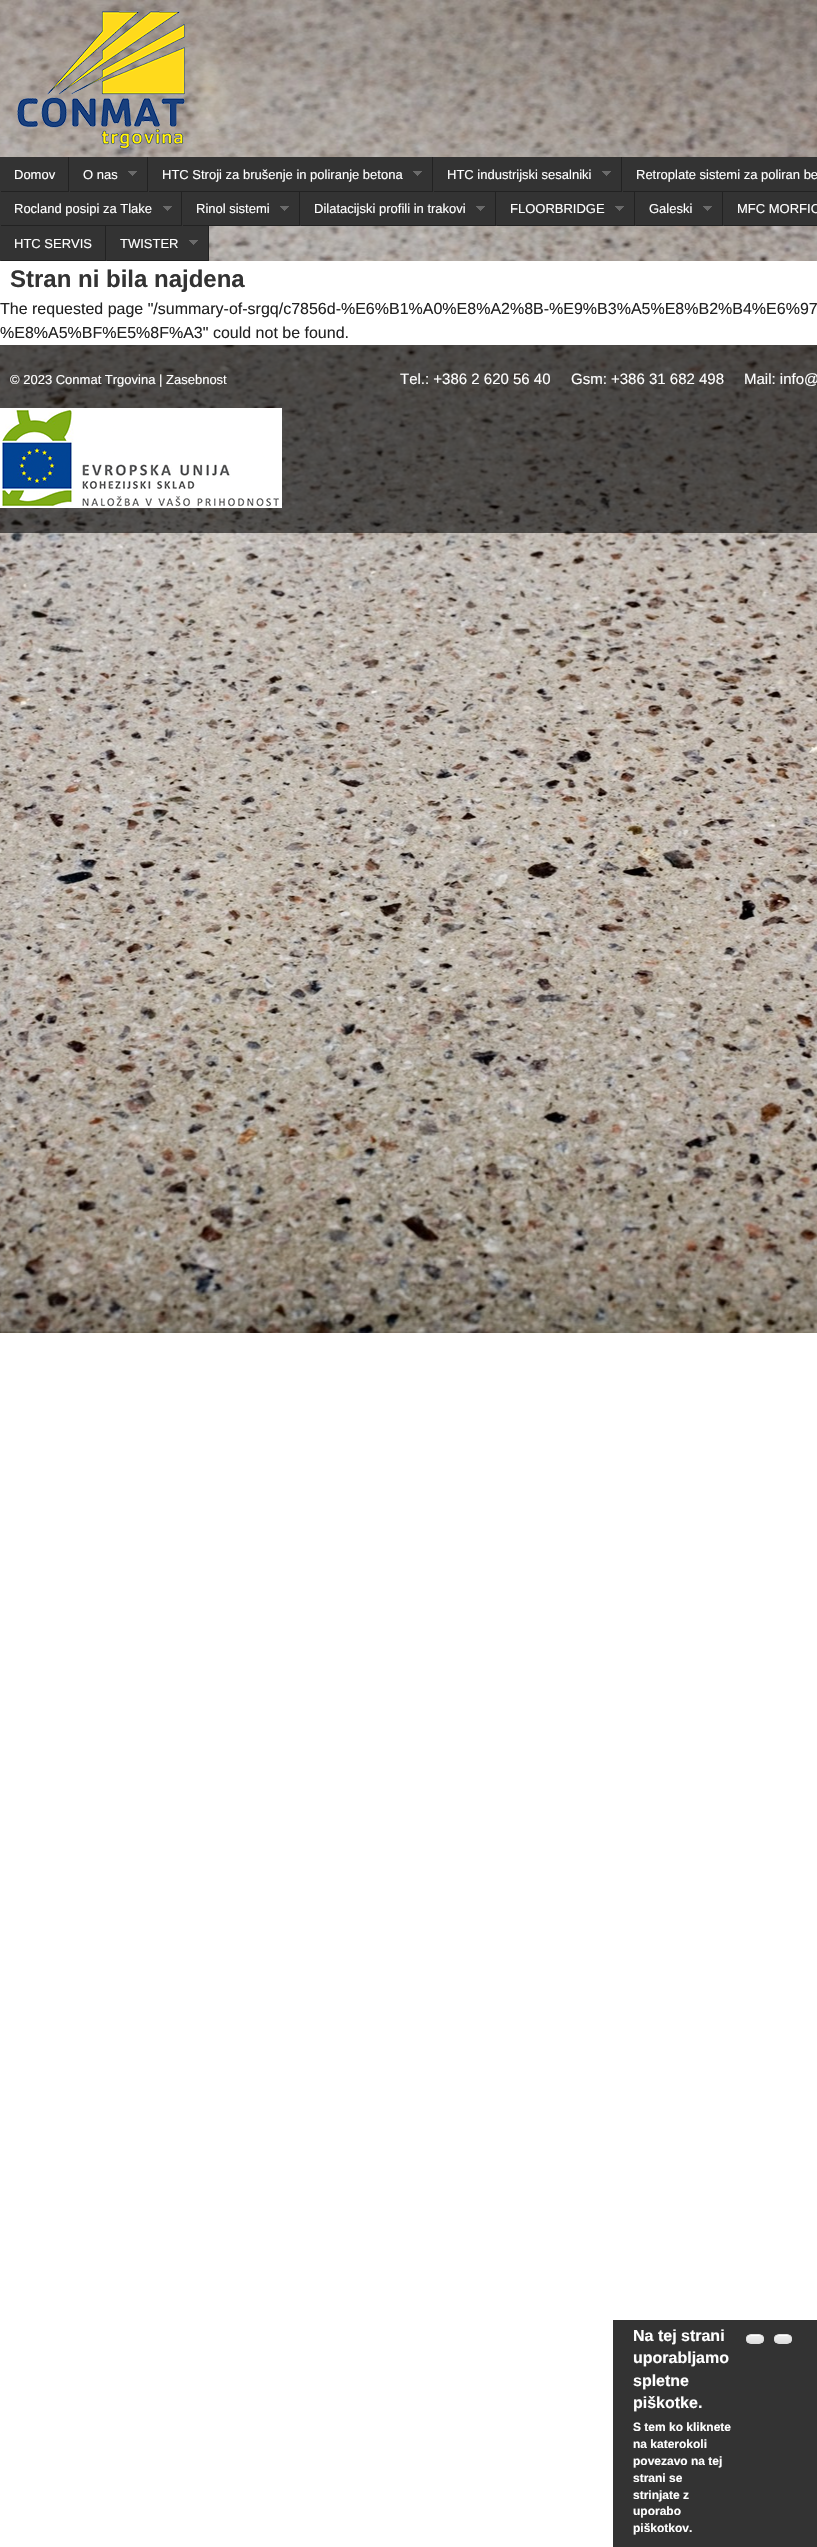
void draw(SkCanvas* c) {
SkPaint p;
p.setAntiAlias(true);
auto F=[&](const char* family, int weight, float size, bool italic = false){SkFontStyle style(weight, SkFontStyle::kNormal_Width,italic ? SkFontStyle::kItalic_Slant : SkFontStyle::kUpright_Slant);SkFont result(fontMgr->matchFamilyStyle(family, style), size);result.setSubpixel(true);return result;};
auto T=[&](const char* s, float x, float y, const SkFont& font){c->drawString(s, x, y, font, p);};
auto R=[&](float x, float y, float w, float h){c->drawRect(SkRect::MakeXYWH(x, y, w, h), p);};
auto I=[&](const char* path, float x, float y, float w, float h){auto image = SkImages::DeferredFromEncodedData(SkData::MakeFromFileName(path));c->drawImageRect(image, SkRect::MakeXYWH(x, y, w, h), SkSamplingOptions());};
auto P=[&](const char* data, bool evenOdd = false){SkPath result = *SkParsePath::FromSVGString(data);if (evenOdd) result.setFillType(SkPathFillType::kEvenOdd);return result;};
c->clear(0xffffffff);
I("1.png",0,0,817,1333);
I("2.png",17,11,168,138);
p.setColor(0xff333333);
R(1,157,816,68);
p.setColor(0xff222222);
R(68,157,1,35);
R(0,191,69,1);
p.setColor(0xff333333);
R(0,157,1,35);
auto f1 = F("Liberation Sans",400,13);
p.setColor(0xffffffff);
T("Domov",14,179,f1);
p.setColor(0xff222222);
R(147,157,1,35);
R(69,191,79,1);
p.setColor(0xff333333);
R(69,191,1,1);
p.setColor(0xffffffff);
T("O nas",83,179,f1);
I("3.png",128,171,9,5);
p.setColor(0xff222222);
R(432,157,1,35);
R(148,191,285,1);
p.setColor(0xff333333);
R(148,191,1,1);
p.setColor(0xffffffff);
T("HTC Stroji za brušenje in poliranje betona",162,179,f1);
I("3.png",413,171,9,5);
p.setColor(0xff222222);
R(621,157,1,35);
R(433,191,384,1);
p.setColor(0xff333333);
R(433,191,1,1);
p.setColor(0xffffffff);
T("HTC industrijski sesalniki",447,179,f1);
I("3.png",602,171,9,5);
p.setColor(0xff333333);
R(622,191,1,1);
p.setColor(0xffffffff);
T("Retroplate sistemi za poliran be",636,179,f1);
p.setColor(0xff222222);
R(181,192,1,34);
R(0,225,182,1);
p.setColor(0xff333333);
R(0,192,1,34);
p.setColor(0xffffffff);
T("Rocland posipi za Tlake",14,213,f1);
I("3.png",163,206,9,5);
p.setColor(0xff222222);
R(299,192,1,34);
R(182,225,118,1);
p.setColor(0xff333333);
R(182,225,1,1);
p.setColor(0xffffffff);
T("Rinol sistemi",196,213,f1);
I("3.png",280,206,9,5);
p.setColor(0xff222222);
R(495,192,1,34);
R(300,225,196,1);
p.setColor(0xff333333);
R(300,225,1,1);
p.setColor(0xffffffff);
T("Dilatacijski profili in trakovi",314,213,f1);
I("3.png",476,206,9,5);
p.setColor(0xff222222);
R(634,192,1,34);
R(496,225,139,1);
p.setColor(0xff333333);
R(496,225,1,1);
p.setColor(0xffffffff);
T("FLOORBRIDGE",510,213,f1);
I("3.png",615,206,9,5);
p.setColor(0xff222222);
R(722,192,1,34);
R(635,225,182,1);
p.setColor(0xff333333);
R(635,225,1,1);
p.setColor(0xffffffff);
T("Galeski",649,213,f1);
I("3.png",703,206,9,5);
p.setColor(0xff333333);
R(723,225,1,1);
p.setColor(0xffffffff);
T("MFC MORFIC",737,213,f1);
p.setColor(0xff333333);
R(1,226,104,34);
p.setColor(0xff222222);
R(105,226,1,35);
R(0,260,106,1);
p.setColor(0xff333333);
R(0,226,1,35);
p.setColor(0xffffffff);
T("HTC SERVIS",14,248,f1);
p.setColor(0xff333333);
R(107,226,101,34);
p.setColor(0xff222222);
R(208,226,1,35);
R(106,260,103,1);
p.setColor(0xff333333);
R(106,226,1,35);
p.setColor(0xffffffff);
T("TWISTER",120,248,f1);
I("3.png",189,240,9,5);
R(0,261,817,84);
auto f2 = F("Liberation Sans",700,24);
p.setColor(0xff333333);
T("Stran ni bila najdena",10,287,f2);
auto f3 = F("Liberation Sans",400,16);
p.setColor(0xff222222);
T("The requested page \"/summary-of-srgq/c7856d-%E6%B1%A0%E8%A2%8B-%E9%B3%A5%E8%B2%B4%E6%97",0,314,f3);
T("%E8%A5%BF%E5%8F%A3\" could not be found.",0,338,f3);
p.setColor(0x99000000);
R(0,345,817,188);
p.setColor(0xffffffff);
T("© 2023 Conmat Trgovina | Zasebnost",10,384,f1);
auto f4 = F("Liberation Sans",400,15);
T("Tel.: +386 2 620 56 40",400,384,f4);
T("Gsm: +386 31 682 498",571,384,f4);
T("Mail: info@",744,384,f4);
I("4.png",0,408,282,100);
p.setColor(0xff333333);
R(613,2320,204,227);
auto f5 = F("Liberation Sans",700,16);
p.setColor(0xffffffff);
T("Na tej strani",633,2341,f5);
T("uporabljamo",633,2363,f5);
T("spletne",633,2386,f5);
T("piškotke.",633,2408,f5);
auto f6 = F("Liberation Sans",700,12);
T("S tem ko kliknete",633,2431,f6);
T("na katerokoli",633,2448,f6);
T("povezavo na tej",633,2465,f6);
T("strani se",633,2482,f6);
T("strinjate z",633,2499,f6);
T("uporabo",633,2515,f6);
T("piškotkov.",633,2532,f6);
c->save();
c->clipPath(P("M751 2334h8c3 0 5 2 5 5c0 3-2 5-5 5h-8c-3 0-5-2-5-5c0-3 2-5 5-5z"),true);
{
const SkColor colors[] = {0xffededed,0xffdfdfdf};
const float stops[] = {.05,1};
const SkPoint ends[] = {{747,2335}, {747,2343}};
p.setShader(SkGradientShader::MakeLinear(ends, colors, stops, 2, SkTileMode::kClamp));
p.setAlpha(255);
}
R(746,2335,18,8);
c->restore();
p.setShader(nullptr);
p.setColor(0xffffffff);
c->drawPath(P("M751 2336h10c1 .5 1.5 1.5 2 2.5c-.5-4-5-3.5-8-3.5c-2.5 0-6.5-.5-7.5 2.5c-.5 1-.5 2 0 3c-.5-2.5 1-4.5 3.5-4.5z"),p);
p.setStroke(true);
p.setStrokeWidth(1);
p.setColor(0xffdcdcdc);
c->drawRoundRect(SkRect::MakeXYWH(746.5,2334.5,17,9),4.5,4.5,p);
c->save();
c->clipPath(P("M779 2334h8c3 0 5 2 5 5c0 3-2 5-5 5h-8c-3 0-5-2-5-5c0-3 2-5 5-5z"),true);
p.setStroke(false);
{
const SkColor colors[] = {0xffededed,0xffdfdfdf};
const float stops[] = {.05,1};
const SkPoint ends[] = {{775,2335}, {775,2343}};
p.setShader(SkGradientShader::MakeLinear(ends, colors, stops, 2, SkTileMode::kClamp));
p.setAlpha(255);
}
R(774,2335,18,8);
c->restore();
p.setShader(nullptr);
p.setColor(0xffffffff);
c->drawPath(P("M779 2336h10c1 .5 1.5 1.5 2 2.5c-.5-4-5-3.5-8-3.5c-2.5 0-6.5-.5-7.5 2.5c-.5 1-.5 2 0 3c-.5-2.5 1-4.5 3.5-4.5z"),p);
p.setStroke(true);
p.setColor(0xffdcdcdc);
c->drawRoundRect(SkRect::MakeXYWH(774.5,2334.5,17,9),4.5,4.5,p);
}
